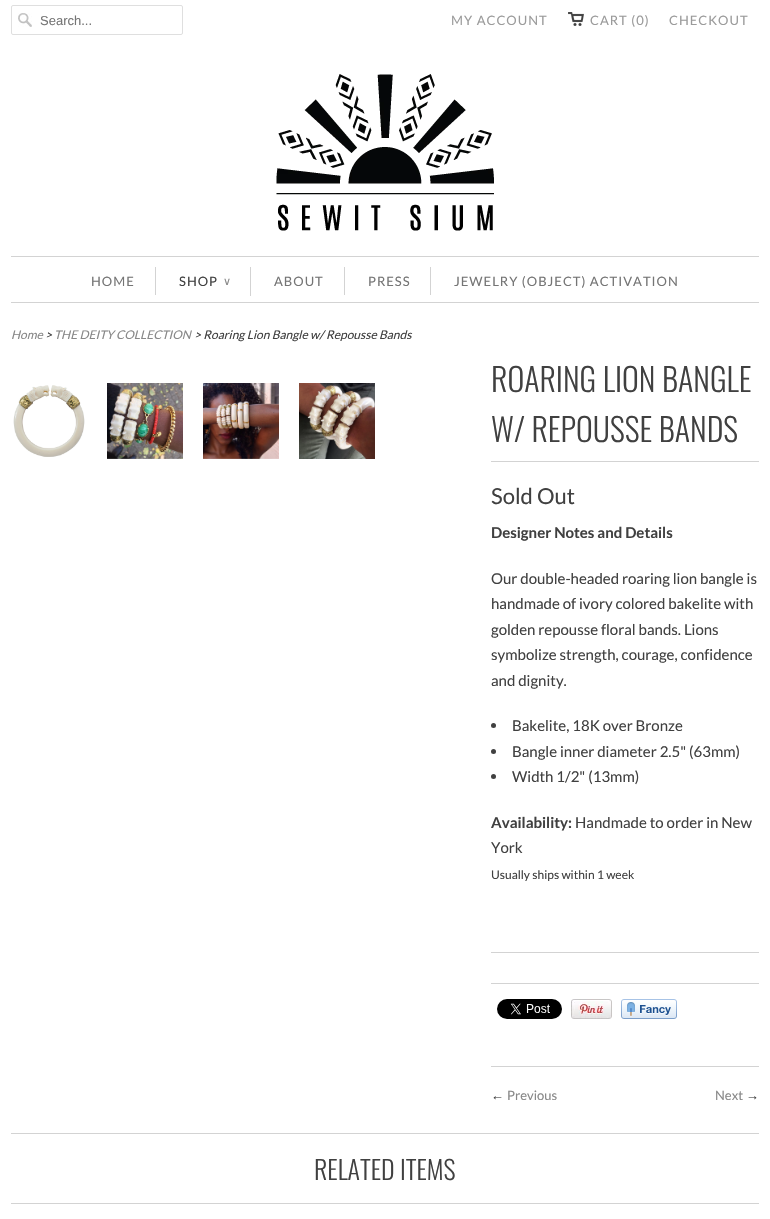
void draw(SkCanvas* c) {
SkPaint p;
p.setAntiAlias(true);
auto F=[&](const char* family, int weight, float size, bool italic = false){SkFontStyle style(weight, SkFontStyle::kNormal_Width,italic ? SkFontStyle::kItalic_Slant : SkFontStyle::kUpright_Slant);SkFont result(fontMgr->matchFamilyStyle(family, style), size);result.setSubpixel(true);return result;};
auto T=[&](const char* s, float x, float y, const SkFont& font){c->drawString(s, x, y, font, p);};
auto L=[&](const char* s, float x, float y, const SkFont& font, const SkPaint& ink, float letter, float word){std::vector<SkGlyphID> glyphs(font.countText(s, strlen(s), SkTextEncoding::kUTF8));std::vector<float> xs(glyphs.size());font.textToGlyphs(s, strlen(s), SkTextEncoding::kUTF8, glyphs);font.getXPos(glyphs, xs, x);float extra = 0;for (size_t i = 0; i < glyphs.size(); i++) {xs[i] += extra;extra += letter + word * (glyphs[i] == font.unicharToGlyph(' '));}c->drawTextBlob(SkTextBlob::MakeFromPosHGlyphs(glyphs, xs, y, font), 0, 0, ink);};
auto R=[&](float x, float y, float w, float h){c->drawRect(SkRect::MakeXYWH(x, y, w, h), p);};
auto I=[&](const char* path, float x, float y, float w, float h){auto image = SkImages::DeferredFromEncodedData(SkData::MakeFromFileName(path));c->drawImageRect(image, SkRect::MakeXYWH(x, y, w, h), SkSamplingOptions());};
c->clear(0xffffffff);
I("1.png",18,13,14,14);
p.setStroke(true);
p.setStrokeWidth(1);
p.setColor(0xffdfdfdf);
c->drawRoundRect(SkRect::MakeXYWH(11.5,5.5,171,29),1.5,1.5,p);
auto f1 = F("Liberation Sans",400,13);
p.setStroke(false);
p.setColor(0xff757575);
T("Search...",40,25,f1);
auto f2 = F("Lato",400,13);
p.setColor(0xff9b9b9b);
L("MY ACCOUNT",451,25,f2,p,1,0);
I("2.png",568,12,16,14);
L("CART (0)",590,25,f2,p,1,0);
L("CHECKOUT",669,25,f2,p,1,0);
I("3.png",276,74,218,157);
p.setColor(0xffd3d3d3);
R(11,256,748,1);
R(11,302,748,1);
R(155,267,1,28);
p.setColor(0xff757575);
L("HOME",91,286,f2,p,1,0);
p.setColor(0xffd3d3d3);
R(250,267,1,29);
p.setColor(0xff404040);
L("SHOP",179,286,f2,p,1,0);
auto f3 = F("DejaVu Sans",400,11);
p.setColor(0xff888888);
L("∨",223,285,f3,p,1,0);
p.setColor(0xffd3d3d3);
R(344,267,1,28);
p.setColor(0xff757575);
L("ABOUT",274,286,f2,p,1,0);
p.setColor(0xffd3d3d3);
R(430,267,1,28);
p.setColor(0xff757575);
L("PRESS",368,286,f2,p,1,0);
L("JEWELRY (OBJECT) ACTIVATION",454,286,f2,p,1,0);
auto f4 = F("Lato",400,12,true);
p.setColor(0xff888888);
T("Home",11,339,f4);
p.setColor(0xff404040);
T(">",45,339,f4);
p.setColor(0xff888888);
T("THE DEITY COLLECTION",54,339,f4);
p.setColor(0xff404040);
T("> Roaring Lion Bangle w/ Repousse Bands",194,339,f4);
I("4.png",13,385,72,72);
I("5.png",107,383,76,76);
I("6.png",203,383,76,76);
I("7.png",299,383,76,76);
p.setColor(0xffd3d3d3);
R(491,461,268,1);
auto f5 = F("Oswald",300,32);
p.setColor(0xff404040);
T("ROARING LION BANGLE",491,392,f5);
T("W/ REPOUSSE BANDS",491,442,f5);
auto f6 = F("Lato",400,22);
T("Sold Out",491,504,f6);
auto f7 = F("Lato",700,15);
T("Designer Notes and Details",491,538,f7);
auto f8 = F("Lato",400,15);
T("Our double-headed roaring lion bangle is",491,584,f8);
T("handmade of ivory colored bakelite with",491,609,f8);
T("golden repousse floral bands. Lions",491,635,f8);
T("symbolize strength, courage, confidence",491,660,f8);
T("and dignity.",491,686,f8);
c->drawCircle(493.5,725.5,2.5,p);
T("Bakelite, 18K over Bronze",512,731,f8);
c->drawCircle(493.5,751.5,2.5,p);
T("Bangle inner diameter 2.5\" (63mm)",512,757,f8);
c->drawCircle(493.5,776.5,2.5,p);
T("Width 1/2\" (13mm)",512,782,f8);
T("Availability:",491,828,f7);
T("Handmade to order in New",575,828,f8);
T("York",491,853,f8);
auto f9 = F("Lato",400,12);
T("Usually ships within 1 week",491,879,f9);
p.setColor(0xffd3d3d3);
R(491,952,268,1);
R(491,983,268,1);
I("8.png",497,999,65,20);
I("9.png",571,999,41,20);
I("10.png",621,999,56,20);
R(491,1066,268,1);
auto f10 = F("Liberation Serif",400,13);
p.setColor(0xff404040);
T("←",491,1100,f10);
p.setColor(0xff888888);
T("Previous",507,1100,f2);
T("Next",715,1100,f2);
p.setColor(0xff404040);
T("→",746,1100,f10);
p.setColor(0xffd3d3d3);
R(11,1133,748,1);
R(11,1203,748,1);
auto f11 = F("Oswald",300,26);
p.setColor(0xff404040);
T("RELATED ITEMS",314,1180,f11);
}
